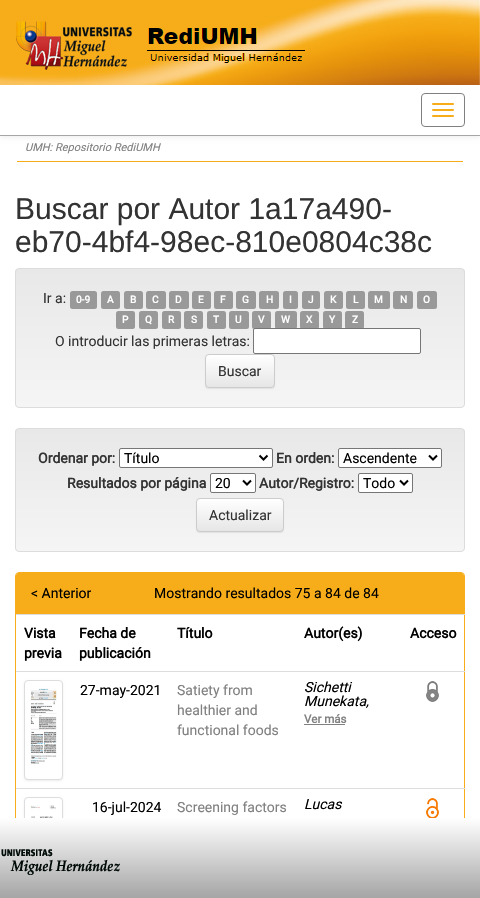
void draw(SkCanvas* c) {
SkPaint p;
p.setAntiAlias(true);
auto F=[&](const char* family, int weight, float size, bool italic = false){SkFontStyle style(weight, SkFontStyle::kNormal_Width,italic ? SkFontStyle::kItalic_Slant : SkFontStyle::kUpright_Slant);SkFont result(fontMgr->matchFamilyStyle(family, style), size);result.setSubpixel(true);return result;};
auto T=[&](const char* s, float x, float y, const SkFont& font){c->drawString(s, x, y, font, p);};
auto R=[&](float x, float y, float w, float h){c->drawRect(SkRect::MakeXYWH(x, y, w, h), p);};
auto Q=[&](float x, float y, float w, float h, float radius){c->drawRoundRect(SkRect::MakeXYWH(x, y, w, h), radius, radius, p);};
auto I=[&](const char* path, float x, float y, float w, float h){auto image = SkImages::DeferredFromEncodedData(SkData::MakeFromFileName(path));c->drawImageRect(image, SkRect::MakeXYWH(x, y, w, h), SkSamplingOptions());};
auto P=[&](const char* data, bool evenOdd = false){SkPath result = *SkParsePath::FromSVGString(data);if (evenOdd) result.setFillType(SkPathFillType::kEvenOdd);return result;};
c->clear(0xffffffff);
p.setColor(0x12000000);
p.setMaskFilter(SkMaskFilter::MakeBlur(kNormal_SkBlurStyle, 2.5));
c->drawRect(SkRect::MakeXYWH(0,1,480,136),p);
p.setMaskFilter(nullptr);
p.setColor(0xffffffff);
R(0,0,480,135);
p.setColor(0xffa6a6a6);
R(0,135,480,1);
I("1.png",0,0,480,85);
I("2.png",16,21,289,49);
p.setStroke(true);
p.setStrokeWidth(1);
p.setColor(0xff808080);
c->drawRoundRect(SkRect::MakeXYWH(421.5,93.5,43,33),3.5,3.5,p);
p.setStroke(false);
p.setColor(0xfff7ad1a);
Q(432,103,22,2,1);
Q(432,109,22,2,1);
Q(432,115,22,2,1);
R(17,161,446,1);
auto f1 = F("Roboto",400,11,true);
p.setColor(0xff808080);
T("UMH: Repositorio RediUMH",25,151,f1);
auto f2 = F("Liberation Sans",400,30);
p.setColor(0xff333333);
T("Buscar por Autor 1a17a490-",15,219,f2);
T("eb70-4bf4-98ec-810e0804c38c",15,252,f2);
c->save();
c->clipPath(P("M19 268h442c2 0 4 2 4 4v132c0 2-2 4-4 4h-442c-2 0-4-2-4-4v-132c0-2 2-4 4-4z"),true);
{
const SkColor colors[] = {0xffe8e8e8,0xfff5f5f5};
const float stops[] = {0,1};
const SkPoint ends[] = {{240,269}, {240,407}};
p.setShader(SkGradientShader::MakeLinear(ends, colors, stops, 2, SkTileMode::kClamp));
p.setAlpha(255);
}
R(15,269,450,138);
c->restore();
p.setStroke(true);
p.setShader(nullptr);
p.setColor(0xffdcdcdc);
c->drawRoundRect(SkRect::MakeXYWH(15.5,268.5,449,139),3.5,3.5,p);
auto f3 = F("Roboto",400,14);
p.setStroke(false);
p.setColor(0xff333333);
T("Ir a:",43,303,f3);
p.setColor(0xff999999);
Q(70,291,27,18,2.5);
auto f4 = F("Roboto",700,10);
p.setColor(0xffffffff);
T("0-9",76,303,f4);
p.setColor(0xff999999);
Q(101,291,19,18,2.5);
p.setColor(0xffffffff);
T("A",107,303,f4);
p.setColor(0xff999999);
Q(124,291,19,18,2.5);
p.setColor(0xffffffff);
T("B",130,303,f4);
p.setColor(0xff999999);
Q(146,291,20,18,2.5);
p.setColor(0xffffffff);
T("C",152,303,f4);
p.setColor(0xff999999);
Q(169,291,20,18,2.5);
p.setColor(0xffffffff);
T("D",175,303,f4);
p.setColor(0xff999999);
Q(192,291,19,18,2.5);
p.setColor(0xffffffff);
T("E",198,303,f4);
p.setColor(0xff999999);
Q(214,291,19,18,2.5);
p.setColor(0xffffffff);
T("F",220,303,f4);
p.setColor(0xff999999);
Q(236,291,20,18,2.5);
p.setColor(0xffffffff);
T("G",242,303,f4);
p.setColor(0xff999999);
Q(259,291,20,18,2.5);
p.setColor(0xffffffff);
T("H",266,303,f4);
p.setColor(0xff999999);
Q(283,291,15,18,2.5);
p.setColor(0xffffffff);
T("I",289,303,f4);
p.setColor(0xff999999);
Q(302,291,18,18,2.5);
p.setColor(0xffffffff);
T("J",308,303,f4);
p.setColor(0xff999999);
Q(324,291,19,18,2.5);
p.setColor(0xffffffff);
T("K",330,303,f4);
p.setColor(0xff999999);
Q(346,291,19,18,2.5);
p.setColor(0xffffffff);
T("L",353,303,f4);
p.setColor(0xff999999);
Q(368,291,22,18,2.5);
p.setColor(0xffffffff);
T("M",374,303,f4);
p.setColor(0xff999999);
Q(393,291,20,18,2.5);
p.setColor(0xffffffff);
T("N",400,303,f4);
p.setColor(0xff999999);
Q(417,291,20,18,2.5);
p.setColor(0xffffffff);
T("O",423,303,f4);
p.setColor(0xff999999);
Q(116,311,19,18,2.5);
p.setColor(0xffffffff);
T("P",122,323,f4);
p.setColor(0xff999999);
Q(139,311,19,18,2.5);
p.setColor(0xffffffff);
T("Q",145,323,f4);
p.setColor(0xff999999);
Q(162,311,19,18,2.5);
p.setColor(0xffffffff);
T("R",168,323,f4);
p.setColor(0xff999999);
Q(184,311,19,18,2.5);
p.setColor(0xffffffff);
T("S",191,323,f4);
p.setColor(0xff999999);
Q(207,311,19,18,2.5);
p.setColor(0xffffffff);
T("T",213,323,f4);
p.setColor(0xff999999);
Q(229,311,20,18,2.5);
p.setColor(0xffffffff);
T("U",235,323,f4);
p.setColor(0xff999999);
Q(252,311,19,18,2.5);
p.setColor(0xffffffff);
T("V",258,323,f4);
p.setColor(0xff999999);
Q(275,311,22,18,2.5);
p.setColor(0xffffffff);
T("W",281,323,f4);
p.setColor(0xff999999);
Q(300,311,19,18,2.5);
p.setColor(0xffffffff);
T("X",306,323,f4);
p.setColor(0xff999999);
Q(323,311,19,18,2.5);
p.setColor(0xffffffff);
T("Y",329,323,f4);
p.setColor(0xff999999);
Q(345,311,19,18,2.5);
p.setColor(0xffffffff);
T("Z",352,323,f4);
p.setColor(0xff333333);
T("O introducir las primeras letras:",55,346,f3);
p.setColor(0xffffffff);
c->drawRoundRect(SkRect::MakeXYWH(253.5,328.5,167,25),1.5,1.5,p);
p.setStroke(true);
p.setColor(0xff767676);
c->drawRoundRect(SkRect::MakeXYWH(253.5,328.5,167,25),1.5,1.5,p);
p.setStroke(false);
p.setColor(0x12000000);
p.setMaskFilter(SkMaskFilter::MakeBlur(kNormal_SkBlurStyle, .5));
c->drawRoundRect(SkRect::MakeXYWH(205,355,70,34),4,4,p);
p.setMaskFilter(nullptr);
c->save();
c->clipPath(P("M209 354h62c2 0 4 2 4 4v26c0 2-2 4-4 4h-62c-2 0-4-2-4-4v-26c0-2 2-4 4-4z"),true);
{
const SkColor colors[] = {0xffffffff,0xffe6e6e6};
const float stops[] = {0,1};
const SkPoint ends[] = {{240,355}, {240,387}};
p.setShader(SkGradientShader::MakeLinear(ends, colors, stops, 2, SkTileMode::kClamp));
p.setAlpha(255);
}
R(205,355,70,32);
c->restore();
p.setStroke(true);
p.setShader(nullptr);
p.setColor(0xffcccccc);
c->drawRoundRect(SkRect::MakeXYWH(205.5,354.5,69,33),3.5,3.5,p);
p.setStroke(false);
p.setColor(0xff333333);
T("Buscar",218,376,f3);
c->save();
c->clipPath(P("M19 428h442c2 0 4 2 4 4v116c0 2-2 4-4 4h-442c-2 0-4-2-4-4v-116c0-2 2-4 4-4z"),true);
{
const SkColor colors[] = {0xffe8e8e8,0xfff5f5f5};
const float stops[] = {0,1};
const SkPoint ends[] = {{240,429}, {240,551}};
p.setShader(SkGradientShader::MakeLinear(ends, colors, stops, 2, SkTileMode::kClamp));
p.setAlpha(255);
}
R(15,429,450,122);
c->restore();
p.setStroke(true);
p.setShader(nullptr);
p.setColor(0xffdcdcdc);
c->drawRoundRect(SkRect::MakeXYWH(15.5,428.5,449,123),3.5,3.5,p);
auto f5 = F("Roboto",700,14);
p.setStroke(false);
p.setColor(0xff333333);
T("Ordenar por:",38,463,f5);
p.setColor(0xffffffff);
c->drawRoundRect(SkRect::MakeXYWH(119.5,448.5,153,19),1.5,1.5,p);
p.setStroke(true);
p.setColor(0xff767676);
c->drawRoundRect(SkRect::MakeXYWH(119.5,448.5,153,19),1.5,1.5,p);
p.setStrokeWidth(2);
p.setColor(0xff000000);
c->drawPath(P("M259.5 455.5l4 4l4-4"),p);
p.setStroke(false);
T("Título",124,463,f3);
p.setColor(0xff333333);
T("En orden:",276,463,f5);
p.setColor(0xffffffff);
c->drawRoundRect(SkRect::MakeXYWH(338.5,448.5,103,19),1.5,1.5,p);
p.setStroke(true);
p.setStrokeWidth(1);
p.setColor(0xff767676);
c->drawRoundRect(SkRect::MakeXYWH(338.5,448.5,103,19),1.5,1.5,p);
p.setStrokeWidth(2);
p.setColor(0xff000000);
c->drawPath(P("M429 455.5l4 4l4-4"),p);
p.setStroke(false);
T("Ascendente",343,463,f3);
p.setColor(0xff333333);
T("Resultados por página",67,488,f5);
p.setColor(0xffffffff);
c->drawRoundRect(SkRect::MakeXYWH(210.5,473.5,45,19),1.5,1.5,p);
p.setStroke(true);
p.setStrokeWidth(1);
p.setColor(0xff767676);
c->drawRoundRect(SkRect::MakeXYWH(210.5,473.5,45,19),1.5,1.5,p);
p.setStrokeWidth(2);
p.setColor(0xff000000);
c->drawPath(P("M243 480.5l4 4l4-4"),p);
p.setStroke(false);
T("20",215,488,f3);
p.setColor(0xff333333);
T("Autor/Registro:",259,488,f5);
p.setColor(0xffffffff);
c->drawRoundRect(SkRect::MakeXYWH(358.5,473.5,54,19),1.5,1.5,p);
p.setStroke(true);
p.setStrokeWidth(1);
p.setColor(0xff767676);
c->drawRoundRect(SkRect::MakeXYWH(358.5,473.5,54,19),1.5,1.5,p);
p.setStrokeWidth(2);
p.setColor(0xff000000);
c->drawPath(P("M400 480.5l4 4l4-4"),p);
p.setStroke(false);
T("Todo",363,488,f3);
p.setColor(0x12000000);
p.setMaskFilter(SkMaskFilter::MakeBlur(kNormal_SkBlurStyle, .5));
c->drawRoundRect(SkRect::MakeXYWH(196,499,88,34),4,4,p);
p.setMaskFilter(nullptr);
c->save();
c->clipPath(P("M200 498h80c2 0 4 2 4 4v26c0 2-2 4-4 4h-80c-2 0-4-2-4-4v-26c0-2 2-4 4-4z"),true);
{
const SkColor colors[] = {0xffffffff,0xffe6e6e6};
const float stops[] = {0,1};
const SkPoint ends[] = {{240,499}, {240,531}};
p.setShader(SkGradientShader::MakeLinear(ends, colors, stops, 2, SkTileMode::kClamp));
p.setAlpha(255);
}
R(196,499,88,32);
c->restore();
p.setStroke(true);
p.setStrokeWidth(1);
p.setShader(nullptr);
p.setColor(0xffcccccc);
c->drawRoundRect(SkRect::MakeXYWH(196.5,498.5,87,33),3.5,3.5,p);
p.setStroke(false);
p.setColor(0xff333333);
T("Actualizar",209,520,f3);
p.setStroke(true);
p.setColor(0xfff7ad1a);
c->drawRoundRect(SkRect::MakeXYWH(15.5,572.5,449,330),3.5,3.5,p);
p.setStroke(false);
c->drawPath(P("M19 573h442c1.5 0 3 1.5 3 3v38h-448v-38c0-1.5 1.5-3 3-3z"),p);
c->drawPath(P("M19 573h442c1.5 0 3 1.5 3 3v37h-448v-37c0-1.5 1.5-3 3-3z"),p);
p.setColor(0xff000000);
T("< Anterior",31,598,f3);
T("Mostrando resultados 75 a 84 de 84",154,598,f3);
T("Vista",24,638,f5);
T("previa",24,658,f5);
T("Fecha de",79,638,f5);
T("publicación",79,658,f5);
T("Título",177,638,f5);
T("Autor(es)",304,638,f5);
p.setColor(0xffdddddd);
R(16,614,449,1);
p.setColor(0xff000000);
T("Acceso",410,638,f5);
p.setColor(0xffdddddd);
R(16,671,449,1);
I("3.png",426,681,13,21);
p.setColor(0x12000000);
p.setMaskFilter(SkMaskFilter::MakeBlur(kNormal_SkBlurStyle, 1));
c->drawRoundRect(SkRect::MakeXYWH(24,681,39,100),4,4,p);
p.setMaskFilter(nullptr);
p.setColor(0xffffffff);
c->drawRoundRect(SkRect::MakeXYWH(24.5,680.5,38,99),3.5,3.5,p);
p.setStroke(true);
p.setColor(0xffdddddd);
c->drawRoundRect(SkRect::MakeXYWH(24.5,680.5,38,99),3.5,3.5,p);
I("4.png",30,688,27,76);
p.setStroke(false);
p.setColor(0xff000000);
T("27-may-2021",80,695,f3);
p.setColor(0xff808080);
T("Satiety from",177,695,f3);
T("healthier and",177,715,f3);
T("functional foods",177,735,f3);
auto f6 = F("Roboto",400,14,true);
p.setColor(0xff000000);
T("Sichetti",304,692,f6);
T("Munekata,",304,706,f6);
auto f7 = F("Roboto",700,11.5);
p.setColor(0xff808080);
T("Ver más",304,723,f7);
R(304,724,41,1);
p.setColor(0xffdddddd);
R(16,788,449,1);
I("5.png",426,798,13,20);
p.setColor(0x12000000);
p.setMaskFilter(SkMaskFilter::MakeBlur(kNormal_SkBlurStyle, 1));
c->drawRoundRect(SkRect::MakeXYWH(24,798,39,100),4,4,p);
p.setMaskFilter(nullptr);
p.setColor(0xffffffff);
c->drawRoundRect(SkRect::MakeXYWH(24.5,797.5,38,99),3.5,3.5,p);
p.setStroke(true);
p.setColor(0xffdddddd);
c->drawRoundRect(SkRect::MakeXYWH(24.5,797.5,38,99),3.5,3.5,p);
I("6.png",31,805,25,13);
p.setStroke(false);
p.setColor(0xff000000);
T("16-jul-2024",92,812,f3);
p.setColor(0xff808080);
T("Screening factors",177,812,f3);
p.setColor(0xff000000);
T("Lucas",304,809,f6);
{
const SkColor colors[] = {0xffffffff,0xffa6a6a6};
const float stops[] = {0,1};
const SkPoint ends[] = {{240,818}, {240,897}};
p.setShader(SkGradientShader::MakeLinear(ends, colors, stops, 2, SkTileMode::kClamp));
p.setAlpha(255);
}
R(0,818,480,79);
p.setShader(nullptr);
p.setColor(0xffa6a6a6);
R(0,897,480,1);
I("7.png",1,849,119,26);
}
